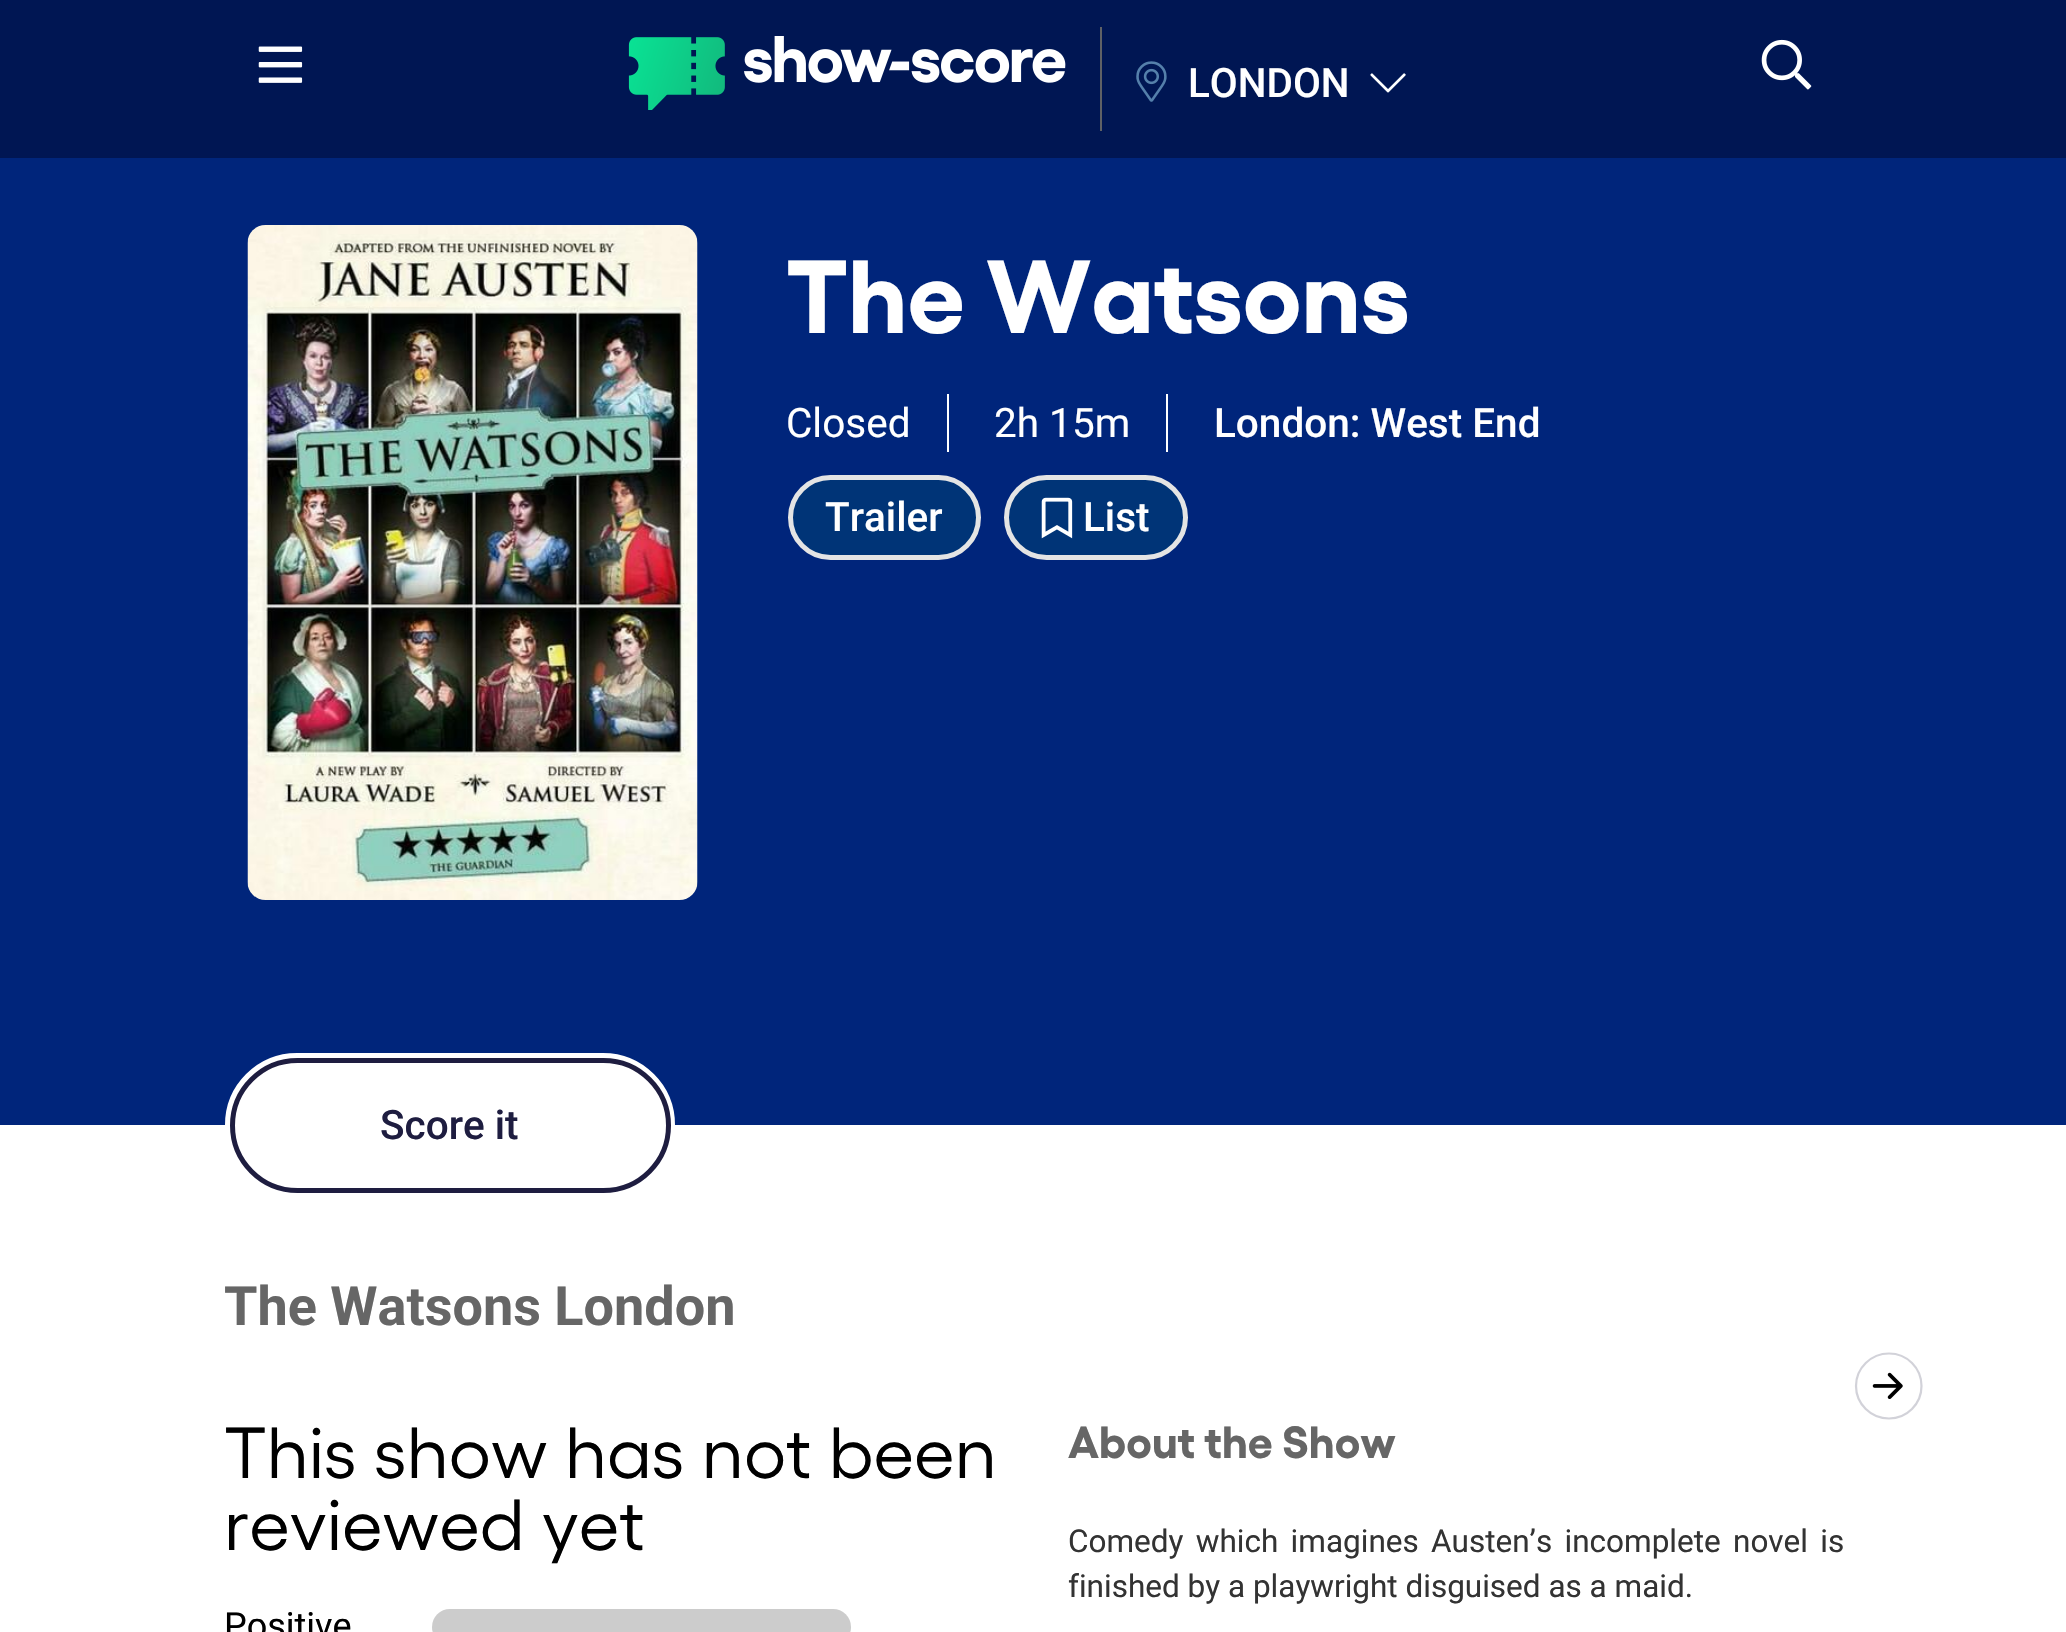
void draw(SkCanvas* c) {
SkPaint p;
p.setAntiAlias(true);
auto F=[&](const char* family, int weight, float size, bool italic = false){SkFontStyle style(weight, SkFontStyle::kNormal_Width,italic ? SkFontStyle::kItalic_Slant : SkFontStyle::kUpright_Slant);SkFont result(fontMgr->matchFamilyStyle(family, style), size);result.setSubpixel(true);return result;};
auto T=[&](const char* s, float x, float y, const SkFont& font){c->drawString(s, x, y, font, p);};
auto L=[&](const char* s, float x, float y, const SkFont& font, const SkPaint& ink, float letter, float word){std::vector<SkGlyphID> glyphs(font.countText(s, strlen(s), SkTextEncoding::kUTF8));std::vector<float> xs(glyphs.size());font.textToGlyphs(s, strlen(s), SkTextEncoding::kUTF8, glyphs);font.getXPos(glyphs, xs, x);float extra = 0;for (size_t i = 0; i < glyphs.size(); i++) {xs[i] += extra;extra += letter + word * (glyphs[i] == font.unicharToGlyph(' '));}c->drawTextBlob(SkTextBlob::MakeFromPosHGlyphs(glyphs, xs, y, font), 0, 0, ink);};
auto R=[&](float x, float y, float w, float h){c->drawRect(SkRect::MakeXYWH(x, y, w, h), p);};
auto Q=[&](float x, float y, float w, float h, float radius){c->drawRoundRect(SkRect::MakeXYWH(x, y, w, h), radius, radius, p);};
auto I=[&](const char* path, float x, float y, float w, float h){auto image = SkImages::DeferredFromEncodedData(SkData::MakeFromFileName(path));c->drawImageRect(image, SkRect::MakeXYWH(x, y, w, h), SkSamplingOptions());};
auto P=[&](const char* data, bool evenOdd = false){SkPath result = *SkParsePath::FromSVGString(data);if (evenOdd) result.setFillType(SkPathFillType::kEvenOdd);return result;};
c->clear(0xffffffff);
p.setColor(0xff001653);
R(0,0,2066,158);
I("1.png",258,46,45,37);
I("2.png",628,36,438,74);
p.setColor(0xff5f6165);
R(1100,27,2,104);
I("3.png",1136,61,31,41);
auto f1 = F("Roboto",500,40.5);
p.setColor(0xffffffff);
T("LONDON",1188,97,f1);
I("4.png",1370,73,36,20);
I("5.png",1761,39,51,51);
p.setColor(0xff00257b);
R(0,158,2066,967);
I("6.png",247,225,451,675);
auto f2 = F("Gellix",700,103.5);
p.setColor(0xffffffff);
T("The Watsons",786,333,f2);
auto f3 = F("Roboto",400,40.5);
T("Closed",786,437,f3);
R(947,394,2,58);
T("2h 15m",994,437,f3);
R(1166,394,2,58);
T("London: West End",1214,437,f1);
p.setColor(0xff003477);
c->drawRoundRect(SkRect::MakeXYWH(790.5,477.5,188,80),40,40,p);
p.setStroke(true);
p.setStrokeWidth(5);
p.setColor(0xffe4e4e4);
c->drawRoundRect(SkRect::MakeXYWH(790.5,477.5,188,80),40,40,p);
p.setStroke(false);
p.setColor(0xffffffff);
T("Trailer",825,531,f1);
p.setColor(0xff003477);
c->drawRoundRect(SkRect::MakeXYWH(1006.5,477.5,179,80),40,40,p);
p.setStroke(true);
p.setColor(0xffe4e4e4);
c->drawRoundRect(SkRect::MakeXYWH(1006.5,477.5,179,80),40,40,p);
I("7.png",1041,497,32,42);
p.setStroke(false);
p.setColor(0xffffffff);
T("List",1083,531,f1);
c->drawRoundRect(SkRect::MakeXYWH(227.5,1055.5,445,139),69.5,69.5,p);
p.setStroke(true);
c->drawRoundRect(SkRect::MakeXYWH(227.5,1055.5,445,139),69.5,69.5,p);
p.setColor(0xff1e1d40);
c->drawRoundRect(SkRect::MakeXYWH(232.5,1060.5,436,130),65,65,p);
p.setStroke(false);
T("Score it",380,1139,f1);
auto f4 = F("Roboto",700,54);
p.setColor(0xff666666);
T("The Watsons London",224,1325,f4);
p.setStroke(true);
p.setStrokeWidth(2.2);
p.setColor(0xffd2d2d9);
c->drawPath(P("M1889 1418.5c-18 0-33-14.5-33-32.5c0-18 15-32.5 33-32.5c18 0 32.5 14.5 32.5 32.5c0 18-14.5 32.5-32.5 32.5z"),p);
I("8.png",1872,1372,31,27);
auto f5 = F("Gellix",400,72);
p.setStroke(false);
p.setColor(0xff000000);
T("This show has not been",224,1478,f5);
T("reviewed yet",224,1550,f5);
auto f6 = F("Roboto",400,36);
T("Positive",224,1638,f6);
p.setColor(0xffcccccc);
Q(432,1609,419,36,18);
auto f7 = F("Gellix",700,45);
p.setColor(0xff666666);
T("About the Show",1068,1458,f7);
auto f8 = F("Roboto",400,31.5);
p.setColor(0xff333333);
L("Comedy which imagines Austen’s incomplete novel is",1068,1552,f8,p,0,4.5);
T("finished by a playwright disguised as a maid.",1068,1597,f8);
}
